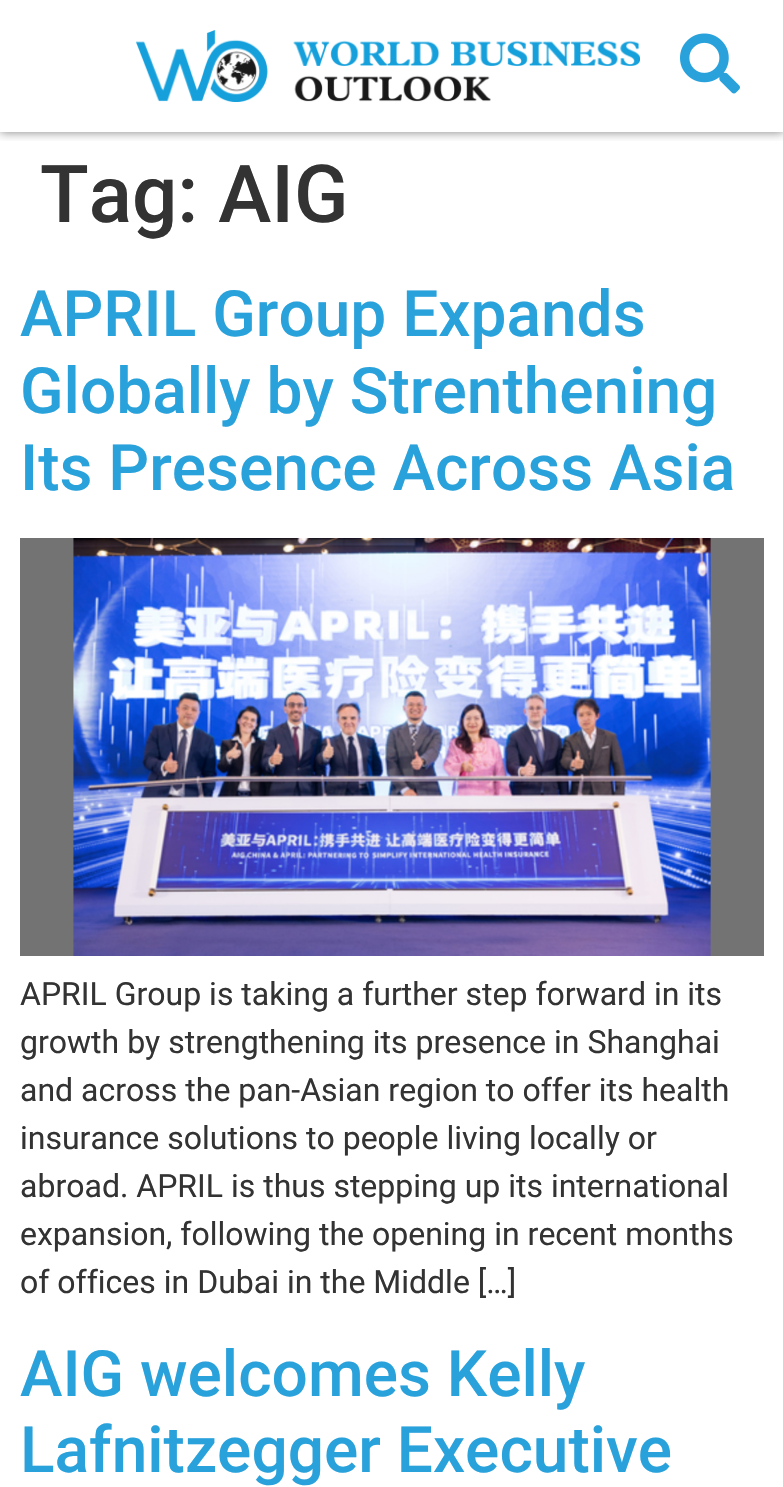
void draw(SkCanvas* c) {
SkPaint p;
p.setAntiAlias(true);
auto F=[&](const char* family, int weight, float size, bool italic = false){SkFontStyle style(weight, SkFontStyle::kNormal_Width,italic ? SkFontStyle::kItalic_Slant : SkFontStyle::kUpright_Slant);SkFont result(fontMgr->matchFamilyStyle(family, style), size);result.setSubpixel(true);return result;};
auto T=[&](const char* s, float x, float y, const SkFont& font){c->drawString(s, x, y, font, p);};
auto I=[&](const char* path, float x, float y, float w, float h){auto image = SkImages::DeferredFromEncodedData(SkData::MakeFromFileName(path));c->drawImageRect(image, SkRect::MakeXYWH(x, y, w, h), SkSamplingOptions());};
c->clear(0xffffffff);
c->save();
c->clipRect(SkRect::MakeXYWH(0,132,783,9));
p.setColor(0x80000000);
p.setMaskFilter(SkMaskFilter::MakeBlur(kNormal_SkBlurStyle, 5));
c->drawRect(SkRect::MakeXYWH(0,0,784,132),p);
p.setMaskFilter(nullptr);
c->restore();
I("1.png",136,30,504,72);
I("2.png",680,33,60,61);
auto f1 = F("Roboto",500,80);
p.setColor(0xff333333);
T("Tag: AIG",40,222,f1);
auto f2 = F("Roboto",500,64);
p.setColor(0xff29a1db);
T("APRIL Group Expands",20,336,f2);
T("Globally by Strenthening",20,413,f2);
T("Its Presence Across Asia",20,490,f2);
I("3.png",20,538,744,418);
auto f3 = F("Roboto",400,32);
p.setColor(0xff333333);
T("APRIL Group is taking a further step forward in its",20,1005,f3);
T("growth by strengthening its presence in Shanghai",20,1053,f3);
T("and across the pan-Asian region to offer its health",20,1101,f3);
T("insurance solutions to people living locally or",20,1149,f3);
T("abroad. APRIL is thus stepping up its international",20,1197,f3);
T("expansion, following the opening in recent months",20,1245,f3);
T("of offices in Dubai in the Middle […]",20,1293,f3);
p.setColor(0xff29a1db);
T("AIG welcomes Kelly",20,1396,f2);
T("Lafnitzegger Executive",20,1472,f2);
}
